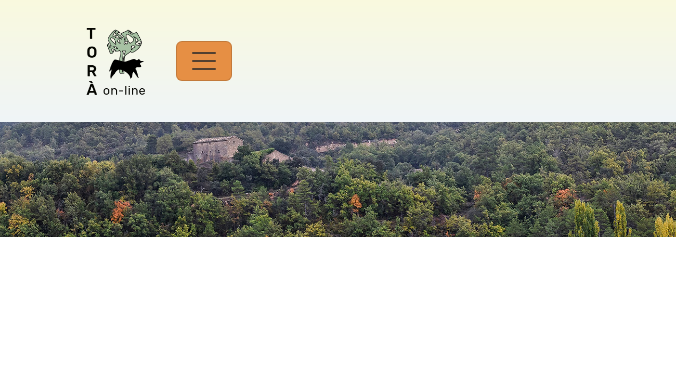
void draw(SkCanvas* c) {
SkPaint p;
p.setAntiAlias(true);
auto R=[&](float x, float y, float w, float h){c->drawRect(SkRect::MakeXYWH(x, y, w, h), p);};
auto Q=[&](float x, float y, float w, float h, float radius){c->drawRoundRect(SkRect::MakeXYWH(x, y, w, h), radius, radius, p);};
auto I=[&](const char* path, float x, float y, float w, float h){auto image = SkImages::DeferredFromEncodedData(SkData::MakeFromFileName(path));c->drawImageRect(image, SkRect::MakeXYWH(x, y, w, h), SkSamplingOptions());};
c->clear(0xffffffff);
{
const SkColor colors[] = {0xfff9f9de,0xffeff4f7};
const float stops[] = {0,1};
const SkPoint ends[] = {{338,0}, {338,122}};
p.setShader(SkGradientShader::MakeLinear(ends, colors, stops, 2, SkTileMode::kClamp));
p.setAlpha(255);
}
R(0,0,676,122);
I("1.png",86,28,59,67);
p.setShader(nullptr);
p.setColor(0xffe68f44);
Q(176,41,56,40,6);
p.setStroke(true);
p.setStrokeWidth(1);
p.setColor(0x26000000);
c->drawRoundRect(SkRect::MakeXYWH(176.5,41.5,55,39),5.5,5.5,p);
I("2.png",192,52,24,18);
I("3.png",0,122,676,115);
}
